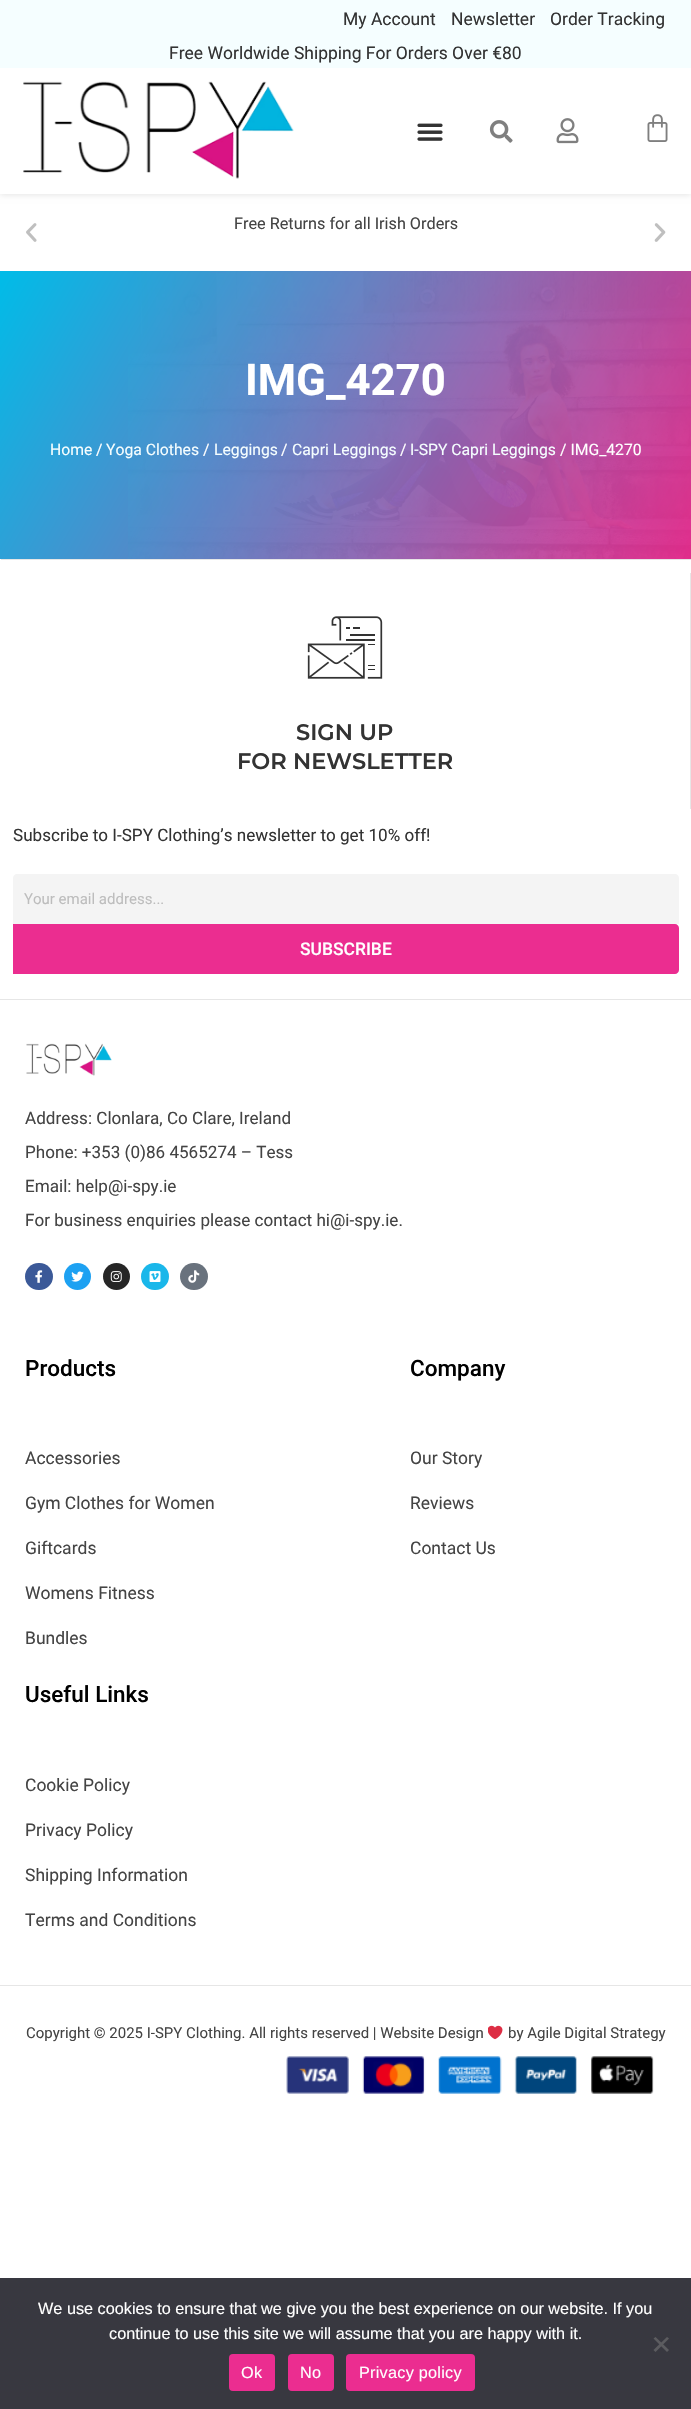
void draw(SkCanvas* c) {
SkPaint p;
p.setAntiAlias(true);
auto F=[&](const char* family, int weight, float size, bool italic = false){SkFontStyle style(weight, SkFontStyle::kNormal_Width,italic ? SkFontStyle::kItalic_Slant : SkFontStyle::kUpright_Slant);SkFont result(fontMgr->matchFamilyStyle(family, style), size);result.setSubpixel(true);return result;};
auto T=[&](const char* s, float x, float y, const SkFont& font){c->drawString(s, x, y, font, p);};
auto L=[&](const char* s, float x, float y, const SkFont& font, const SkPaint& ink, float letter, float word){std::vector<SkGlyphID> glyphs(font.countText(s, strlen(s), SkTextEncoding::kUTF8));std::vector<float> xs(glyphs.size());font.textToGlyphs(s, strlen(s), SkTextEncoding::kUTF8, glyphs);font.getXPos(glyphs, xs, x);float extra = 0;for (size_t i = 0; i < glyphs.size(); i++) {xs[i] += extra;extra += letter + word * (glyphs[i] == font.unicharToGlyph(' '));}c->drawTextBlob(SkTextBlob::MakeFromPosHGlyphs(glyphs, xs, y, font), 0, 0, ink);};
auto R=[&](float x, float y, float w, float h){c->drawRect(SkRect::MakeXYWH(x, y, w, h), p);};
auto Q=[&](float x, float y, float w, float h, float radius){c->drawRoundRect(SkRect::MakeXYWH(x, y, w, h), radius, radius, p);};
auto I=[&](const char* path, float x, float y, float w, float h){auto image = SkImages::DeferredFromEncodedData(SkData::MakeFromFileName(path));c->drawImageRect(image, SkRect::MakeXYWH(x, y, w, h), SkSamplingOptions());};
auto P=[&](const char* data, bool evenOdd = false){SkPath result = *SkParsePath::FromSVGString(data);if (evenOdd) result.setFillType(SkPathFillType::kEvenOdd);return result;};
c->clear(0xffffffff);
p.setColor(0x1a000000);
p.setMaskFilter(SkMaskFilter::MakeBlur(kNormal_SkBlurStyle, 3));
c->drawRect(SkRect::MakeXYWH(0,1,691,194),p);
p.setMaskFilter(nullptr);
p.setColor(0xfff5feff);
R(0,0,691,68);
auto f1 = F("Roboto",400,17.5);
p.setColor(0xff333333);
T("My Account",343,25,f1);
T("Newsletter",451,25,f1);
T("Order Tracking",550,25,f1);
T("Free Worldwide Shipping For Orders Over €80",169,59,f1);
p.setColor(0xffffffff);
R(0,68,691,126);
I("1.png",23,81,271,98);
I("2.png",417,123,26,18);
I("3.png",489,120,24,23);
I("4.png",556,118,23,26);
I("5.png",647,114,21,28);
I("6.png",26,223,11,19);
auto f2 = F("Roboto",400,16.25);
p.setColor(0xff444444);
T("Free Returns for all Irish Orders",234,229,f2);
I("7.png",654,223,12,19);
{
const SkColor colors[] = {0xff00bce8,0xffeb2d90};
const float stops[] = {0,1};
const SkPoint ends[] = {{24,229}, {667,601}};
p.setShader(SkGradientShader::MakeLinear(ends, colors, stops, 2, SkTileMode::kClamp));
p.setAlpha(255);
}
R(0,271,691,288);
I("8.png",128,271,563,288);
auto f3 = F("Roboto",700,43.75);
p.setShader(nullptr);
p.setColor(0xffffffff);
T("IMG_4270",245,395,f3);
auto f4 = F("Roboto",400,15.75);
p.setColor(0xfff5feff);
T("Home",50,455,f4);
p.setColor(0xffffffff);
T("/",96,455,f4);
p.setColor(0xfff5feff);
T("Yoga Clothes",106,455,f4);
p.setColor(0xffffffff);
T("/",203,455,f4);
p.setColor(0xfff5feff);
T("Leggings",214,455,f4);
p.setColor(0xffffffff);
T("/",281,455,f4);
p.setColor(0xfff5feff);
T("Capri Leggings",292,455,f4);
p.setColor(0xffffffff);
T("/",400,455,f4);
p.setColor(0xfff5feff);
T("I-SPY Capri Leggings",410,455,f4);
p.setColor(0xffffffff);
T("/ IMG_4270",560,455,f4);
p.setColor(0xffe6e6e6);
R(1,559,690,1);
R(0,999,691,1);
R(690,573,1,236);
I("9.png",307,616,76,63);
auto f5 = F("Montserrat",600,22.5);
p.setColor(0xff333333);
T("SIGN UP",296,740,f5);
T("FOR NEWSLETTER",237,769,f5);
auto f6 = F("Roboto",400,17.1);
T("Subscribe to I-SPY Clothing’s newsletter to get 10% off!",13,841,f6);
p.setColor(0xfff4f4f4);
c->drawPath(P("M17 874h658c2 0 4 2 4 4v46h-666v-46c0-2 2-4 4-4z"),p);
auto f7 = F("Roboto",400,15);
p.setColor(0xffbdbdbd);
T("Your email address...",24,904,f7);
p.setColor(0xffeb2d90);
c->drawPath(P("M13 924h662c2 0 4 2 4 4v42c0 2-2 4-4 4h-662z"),p);
auto f8 = F("Roboto",500,17.5);
p.setColor(0xffffffff);
T("SUBSCRIBE",300,955,f8);
I("10.png",26,1043,86,33);
p.setColor(0xff444444);
T("Address: Clonlara, Co Clare, Ireland",25,1124,f6);
T("Phone: +353 (0)86 4565274 – Tess",25,1158,f6);
T("Email: help@i-spy.ie",25,1192,f6);
T("For business enquiries please contact hi@i-spy.ie.",25,1226,f6);
p.setColor(0xff3b5998);
Q(25,1263,28,27,13.5);
I("11.png",35,1270,8,13);
p.setColor(0xff1da1f2);
c->drawCircle(77.5,1276.5,13.5,p);
I("12.png",71,1271,13,11);
p.setColor(0xff262626);
c->drawCircle(116.5,1276.5,13.5,p);
I("13.png",110,1271,12,11);
p.setColor(0xff1ab7ea);
Q(141,1263,28,27,13.5);
I("14.png",149,1271,12,11);
p.setColor(0xff69727d);
Q(180,1263,28,27,13.5);
I("15.png",188,1270,12,13);
auto f9 = F("Roboto",500,22.5);
p.setColor(0xff000000);
T("Products",25,1376,f9);
p.setColor(0xff444444);
T("Accessories",25,1464,f1);
T("Gym Clothes for Women",25,1509,f1);
T("Giftcards",25,1554,f1);
T("Womens Fitness",25,1599,f1);
T("Bundles",25,1644,f1);
p.setColor(0xff000000);
T("Company",410,1376,f9);
p.setColor(0xff444444);
T("Our Story",410,1464,f1);
T("Reviews",410,1509,f1);
T("Contact Us",410,1554,f1);
p.setColor(0xff000000);
T("Useful Links",25,1702,f9);
p.setColor(0xff444444);
T("Cookie Policy",25,1791,f1);
T("Privacy Policy",25,1836,f1);
T("Shipping Information",25,1881,f1);
T("Terms and Conditions",25,1926,f1);
p.setColor(0xffe6e6e6);
R(0,1985,691,1);
p.setColor(0xff444444);
T("Copyright © 2025 I-SPY Clothing. All rights reserved | Website Design",26,2038,f7);
I("16.png",488,2025,15,15);
T("by Agile Digital Strategy",508,2038,f7);
I("17.png",286,2056,368,38);
p.setColor(0xff383840);
R(0,2278,691,131);
auto f10 = F("Liberation Sans",400,16.25);
p.setColor(0xffffffff);
T("We use cookies to ensure that we give you the best experience on our website. If you",38,2314,f10);
T("continue to use this site we will assume that you are happy with it.",109,2339,f10);
p.setColor(0xff5c5c60);
c->drawPath(P("M667 2337l2 1.5l-13.5 13.5l-2-2z"),p);
c->drawPath(P("M653.5 2338.5l2-1.5l13.5 13l-2 2z"),p);
p.setColor(0xffeb2d90);
Q(229,2354,46,37,4);
p.setColor(0xffffffff);
L("Ok",241,2378,f10,p,.25,0);
p.setColor(0xffeb2d90);
Q(288,2354,46,37,4);
p.setColor(0xffffffff);
L("No",300,2378,f10,p,.25,0);
p.setColor(0xffeb2d90);
Q(346,2354,129,37,4);
p.setColor(0xffffffff);
L("Privacy policy",359,2378,f10,p,.25,0);
}
